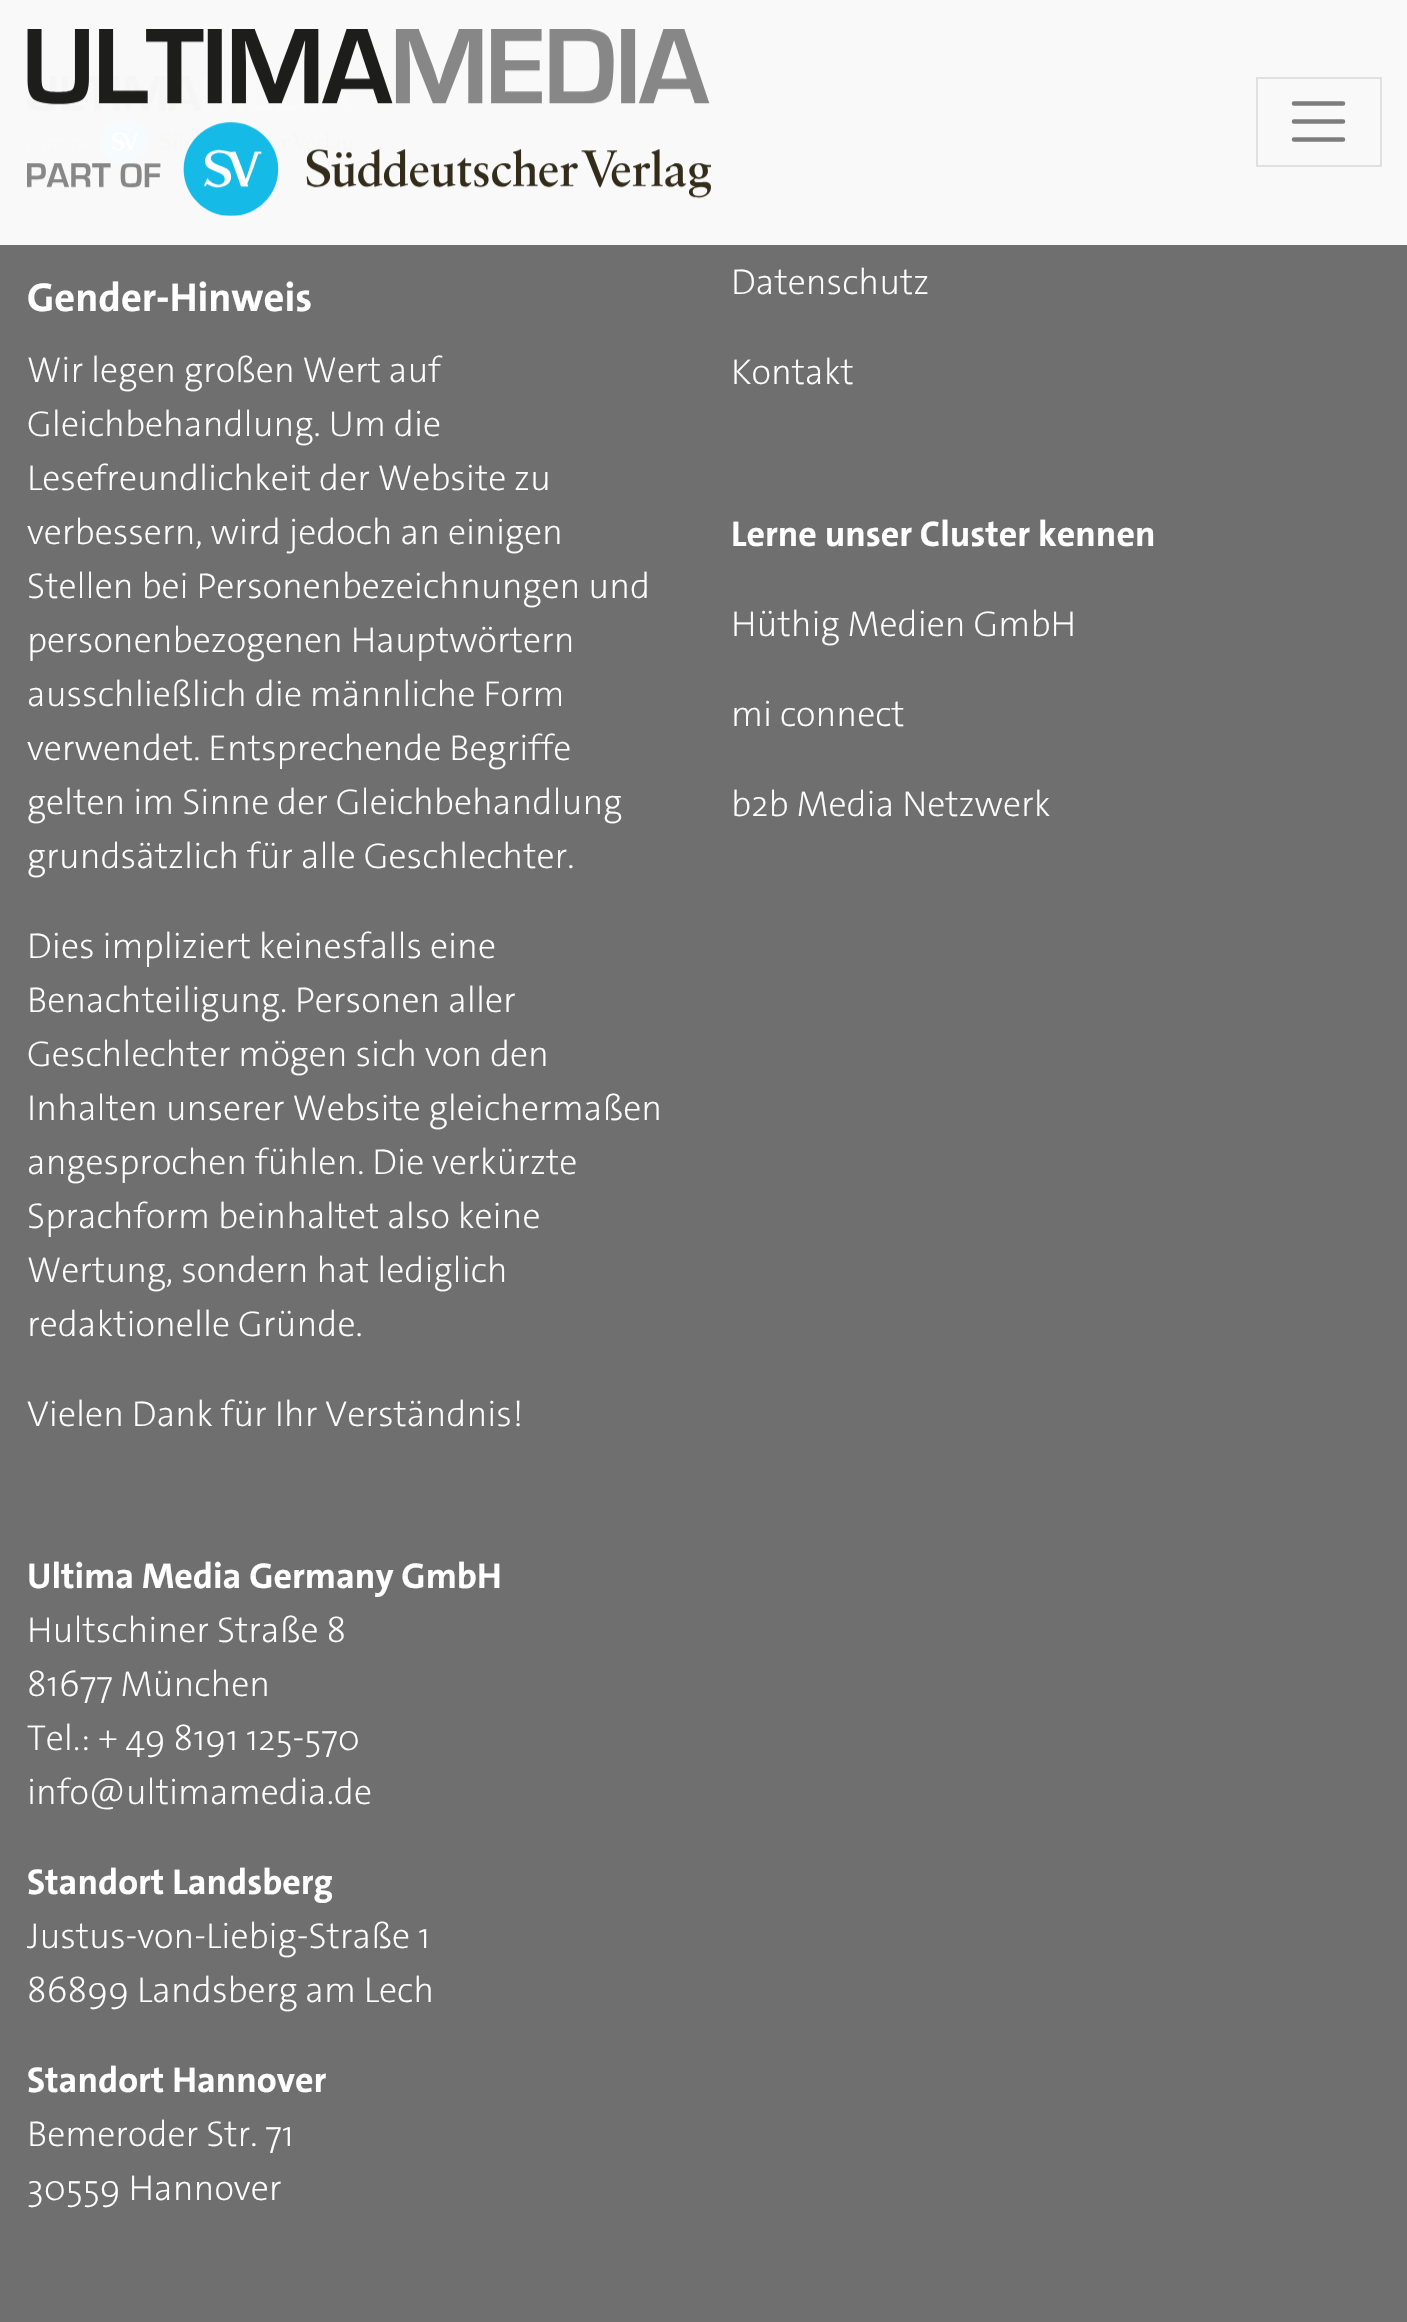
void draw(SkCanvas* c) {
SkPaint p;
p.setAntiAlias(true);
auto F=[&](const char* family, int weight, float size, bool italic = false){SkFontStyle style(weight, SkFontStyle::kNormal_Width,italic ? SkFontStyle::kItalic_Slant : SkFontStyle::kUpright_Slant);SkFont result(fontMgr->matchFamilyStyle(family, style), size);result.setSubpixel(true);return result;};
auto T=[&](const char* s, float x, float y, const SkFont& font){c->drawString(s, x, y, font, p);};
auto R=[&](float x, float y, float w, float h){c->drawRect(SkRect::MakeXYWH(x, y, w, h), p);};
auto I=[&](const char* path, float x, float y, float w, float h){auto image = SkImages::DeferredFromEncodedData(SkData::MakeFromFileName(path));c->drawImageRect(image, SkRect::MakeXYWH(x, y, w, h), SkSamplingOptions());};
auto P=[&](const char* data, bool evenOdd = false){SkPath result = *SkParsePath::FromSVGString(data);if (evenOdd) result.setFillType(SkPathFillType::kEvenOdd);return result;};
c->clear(0xff706f6f);
p.setColor(0xfff9f9f9);
R(0,0,1407,245);
I("2.png",27,76,326,88);
I("1.png",27,29,684,187);
p.setStroke(true);
p.setStrokeWidth(2);
p.setColor(0xffe0e0e0);
c->drawRect(SkRect::MakeXYWH(1257,78,124,88),p);
p.setStrokeWidth(4.5);
p.setStrokeCap(SkPaint::kRound_Cap);
p.setColor(0xff7d7d7d);
c->drawPath(P("M1294 103.5h49m-49 18h49m-49 18h49"),p);
auto f1 = F("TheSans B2",700,40.5);
p.setStroke(false);
p.setColor(0xffffffff);
T("Gender-Hinweis",27,311,f1);
auto f2 = F("TheSans B2",200,36);
T("Wir legen großen Wert auf",27,382,f2);
T("Gleichbehandlung. Um die",27,436,f2);
T("Lesefreundlichkeit der Website zu",27,490,f2);
T("verbessern, wird jedoch an einigen",27,544,f2);
T("Stellen bei Personenbezeichnungen und",27,598,f2);
T("personenbezogenen Hauptwörtern",27,652,f2);
T("ausschließlich die männliche Form",27,706,f2);
T("verwendet. Entsprechende Begriffe",27,760,f2);
T("gelten im Sinne der Gleichbehandlung",27,814,f2);
T("grundsätzlich für alle Geschlechter.",27,868,f2);
T("Dies impliziert keinesfalls eine",27,958,f2);
T("Benachteiligung. Personen aller",27,1012,f2);
T("Geschlechter mögen sich von den",27,1066,f2);
T("Inhalten unserer Website gleichermaßen",27,1120,f2);
T("angesprochen fühlen. Die verkürzte",27,1174,f2);
T("Sprachform beinhaltet also keine",27,1228,f2);
T("Wertung, sondern hat lediglich",27,1282,f2);
T("redaktionelle Gründe.",27,1336,f2);
T("Vielen Dank für Ihr Verständnis!",27,1426,f2);
T("Datenschutz",731,294,f2);
T("Kontakt",731,384,f2);
auto f3 = F("TheSans B2",700,36);
T("Lerne unser Cluster kennen",731,546,f3);
T("Hüthig Medien GmbH",731,636,f2);
T("mi connect",731,726,f2);
T("b2b Media Netzwerk",731,816,f2);
T("Ultima Media Germany GmbH",27,1588,f3);
T("Hultschiner Straße 8",27,1642,f2);
T("81677 München",27,1696,f2);
T("Tel.: + 49 8191 125-570",27,1750,f2);
T("info@ultimamedia.de",27,1804,f2);
T("Standort Landsberg",27,1894,f3);
T("Justus-von-Liebig-Straße 1",27,1948,f2);
T("86899 Landsberg am Lech",27,2002,f2);
T("Standort Hannover",27,2092,f3);
T("Bemeroder Str. 71",27,2146,f2);
T("30559 Hannover",27,2200,f2);
}
